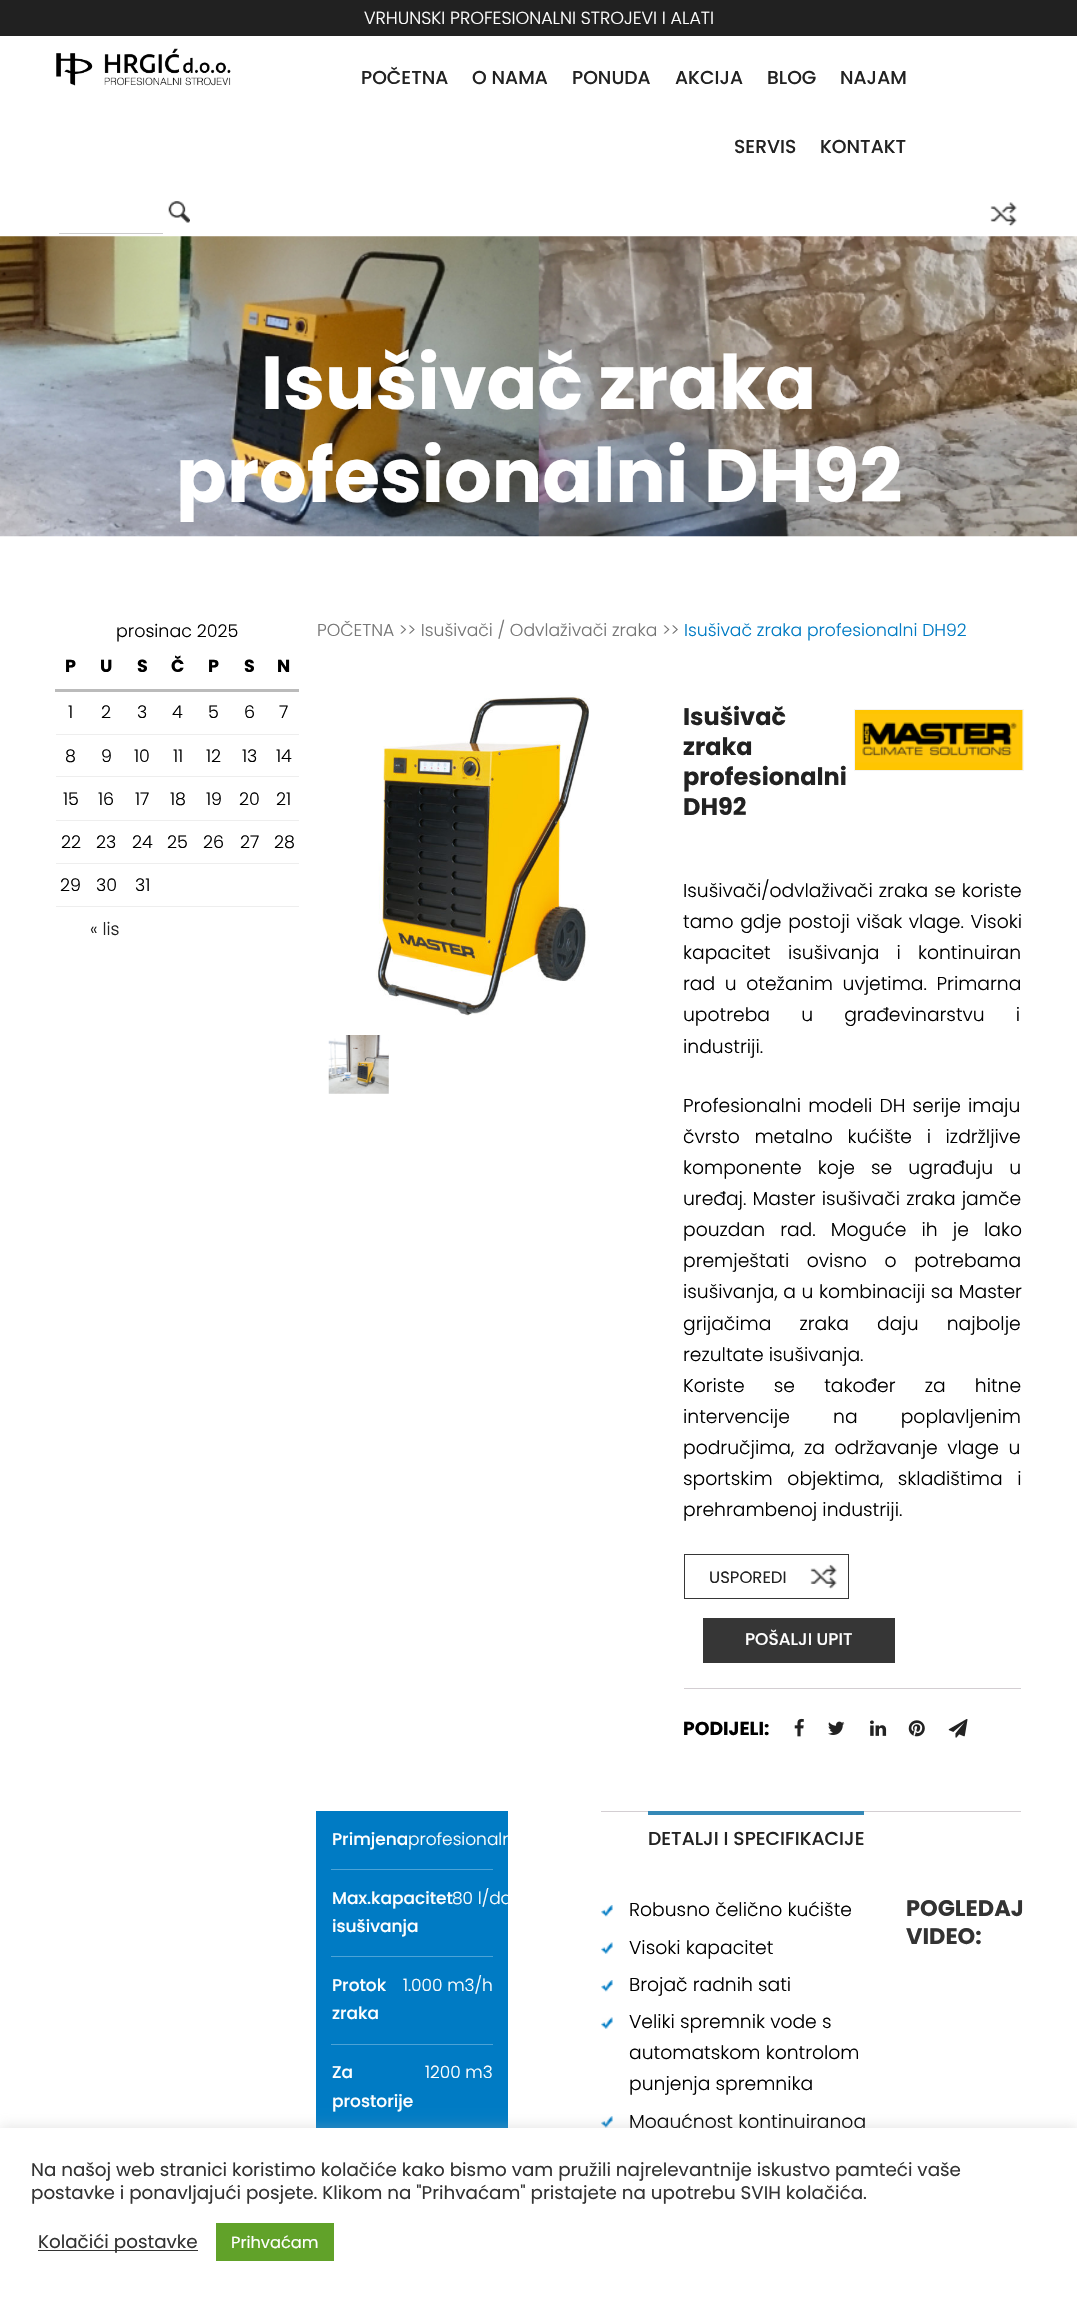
void draw(SkCanvas* c) {
SkPaint p;
p.setAntiAlias(true);
auto F=[&](const char* family, int weight, float size, bool italic = false){SkFontStyle style(weight, SkFontStyle::kNormal_Width,italic ? SkFontStyle::kItalic_Slant : SkFontStyle::kUpright_Slant);SkFont result(fontMgr->matchFamilyStyle(family, style), size);result.setSubpixel(true);return result;};
auto T=[&](const char* s, float x, float y, const SkFont& font){c->drawString(s, x, y, font, p);};
auto L=[&](const char* s, float x, float y, const SkFont& font, const SkPaint& ink, float letter, float word){std::vector<SkGlyphID> glyphs(font.countText(s, strlen(s), SkTextEncoding::kUTF8));std::vector<float> xs(glyphs.size());font.textToGlyphs(s, strlen(s), SkTextEncoding::kUTF8, glyphs);font.getXPos(glyphs, xs, x);float extra = 0;for (size_t i = 0; i < glyphs.size(); i++) {xs[i] += extra;extra += letter + word * (glyphs[i] == font.unicharToGlyph(' '));}c->drawTextBlob(SkTextBlob::MakeFromPosHGlyphs(glyphs, xs, y, font), 0, 0, ink);};
auto R=[&](float x, float y, float w, float h){c->drawRect(SkRect::MakeXYWH(x, y, w, h), p);};
auto I=[&](const char* path, float x, float y, float w, float h){auto image = SkImages::DeferredFromEncodedData(SkData::MakeFromFileName(path));c->drawImageRect(image, SkRect::MakeXYWH(x, y, w, h), SkSamplingOptions());};
c->clear(0xffffffff);
p.setColor(0xff212121);
R(0,0,1077,36);
auto f1 = F("Poppins",300,17.5);
p.setColor(0xffffffff);
T("VRHUNSKI PROFESIONALNI STROJEVI I ALATI",364,24,f1);
I("1.png",56,48,175,38);
auto f2 = F("Poppins",500,18.75);
p.setColor(0xff222222);
T("POČETNA",361,84,f2);
T("O NAMA",472,84,f2);
T("PONUDA",572,84,f2);
T("AKCIJA",675,84,f2);
T("BLOG",767,84,f2);
T("NAJAM",840,84,f2);
T("SERVIS",734,153,f2);
T("KONTAKT",820,153,f2);
I("2.png",168,201,22,22);
p.setColor(0xffcccccc);
R(59,233,104,1);
I("3.png",990,202,27,25);
I("4.png",0,236,1077,301);
auto f3 = F("Poppins",700,75);
p.setColor(0xffffffff);
T("Isušivač zraka",261,409,f3);
T("profesionalni DH92",176,502,f3);
p.setColor(0xff000000);
T("prosinac 2025",116,637,f1);
auto f4 = F("Poppins",700,17.5);
T("P",65,672,f4);
T("U",100,672,f4);
T("S",137,672,f4);
T("Č",171,672,f4);
T("P",208,672,f4);
T("S",244,672,f4);
p.setColor(0xffbbbbbb);
R(55,689,244,3);
p.setColor(0xff000000);
T("N",277,672,f4);
p.setColor(0xffeeeeee);
R(56,734,243,1);
p.setColor(0xff000000);
T("1",68,718,f1);
T("2",101,718,f1);
T("3",137,718,f1);
T("4",172,718,f1);
T("5",208,718,f1);
T("6",244,718,f1);
T("7",279,718,f1);
p.setColor(0xffeeeeee);
R(56,776,243,1);
p.setColor(0xff000000);
T("8",65,762,f1);
T("9",101,762,f1);
T("10",134,762,f1);
T("11",173,762,f1);
T("12",206,762,f1);
T("13",242,762,f1);
T("14",276,762,f1);
p.setColor(0xffeeeeee);
R(56,820,243,1);
p.setColor(0xff000000);
T("15",63,805,f1);
T("16",98,805,f1);
T("17",135,805,f1);
T("18",170,805,f1);
T("19",206,805,f1);
T("20",239,805,f1);
T("21",276,805,f1);
p.setColor(0xffeeeeee);
R(56,863,243,1);
p.setColor(0xff000000);
T("22",61,848,f1);
T("23",96,848,f1);
T("24",132,848,f1);
T("25",167,848,f1);
T("26",203,848,f1);
T("27",240,848,f1);
T("28",274,848,f1);
p.setColor(0xffeeeeee);
R(56,906,243,1);
p.setColor(0xff000000);
T("29",60,891,f1);
T("30",96,891,f1);
T("31",135,891,f1);
p.setColor(0xff222222);
T("« lis",90,935,f1);
auto f5 = F("Poppins",300,17.25);
p.setColor(0xff767676);
T("POČETNA >> Isušivači / Odvlaživači zraka >>",317,636,f5);
p.setColor(0xff007bc4);
T("Isušivač zraka profesionalni DH92",684,636,f5);
I("5.png",376,695,214,321);
I("6.png",328,1035,61,59);
auto f6 = F("Poppins",700,24);
p.setColor(0xff222222);
T("Isušivač",683,725,f6);
T("zraka",683,755,f6);
T("profesionalni",683,785,f6);
T("DH92",683,815,f6);
p.setStroke(true);
p.setStrokeWidth(1);
p.setColor(0xfff4f4f4);
c->drawRect(SkRect::MakeXYWH(854.5,709.5,169,61),p);
I("7.png",855,710,168,60);
auto f7 = F("Poppins",300,18.75);
p.setStroke(false);
p.setColor(0xff000000);
L("Isušivači/odvlaživači zraka se koriste",683,897,f7,p,0,1);
L("tamo gdje postoji višak vlage. Visoki",683,928,f7,p,0,1.5);
L("kapacitet isušivanja i kontinuiran",683,959,f7,p,0,12);
L("rad u otežanim uvjetima. Primarna",683,990,f7,p,0,4.5);
L("upotreba u građevinarstvu i",683,1021,f7,p,0,26);
T("industriji.",683,1053,f7);
L("Profesionalni modeli DH serije imaju",683,1112,f7,p,0,2);
L("čvrsto metalno kućište i izdržljive",683,1143,f7,p,0,9.5);
L("komponente koje se ugrađuju u",683,1174,f7,p,0,11);
L("uređaj. Master isušivači zraka jamče",683,1205,f7,p,0,1);
L("pouzdan rad. Moguće ih je lako",683,1236,f7,p,0,10);
L("premještati ovisno o potrebama",683,1267,f7,p,0,12.5);
L("isušivanja, a u kombinaciji sa Master",683,1298,f7,p,0,.5);
L("grijačima zraka daju najbolje",683,1330,f7,p,0,23);
T("rezultate isušivanja.",683,1361,f7);
L("Koriste se također za hitne",683,1392,f7,p,0,24);
L("intervencije na poplavljenim",683,1423,f7,p,0,38);
L("područjima, za održavanje vlage u",683,1454,f7,p,0,4.5);
L("sportskim objektima, skladištima i",683,1485,f7,p,0,9.5);
T("prehrambenoj industriji.",683,1516,f7);
I("8.png",810,1564,27,25);
p.setStroke(true);
p.setColor(0xff363636);
c->drawRect(SkRect::MakeXYWH(684.5,1554.5,164,44),p);
auto f8 = F("Poppins",400,16.5);
p.setStroke(false);
p.setColor(0xff222222);
T("USPOREDI",709,1583,f8);
p.setColor(0xff363636);
R(703,1618,192,45);
auto f9 = F("Poppins",500,17);
p.setColor(0xffffffff);
T("POŠALJI UPIT",745,1645,f9);
p.setColor(0xffd3ced2);
R(684,1688,337,1);
auto f10 = F("Poppins",700,18.75);
p.setColor(0xff000000);
T("PODIJELI:",683,1735,f10);
I("9.png",794,1718,10,19);
I("10.png",828,1721,17,14);
I("11.png",870,1720,17,16);
I("12.png",908,1720,17,17);
I("13.png",948,1719,20,19);
p.setColor(0xff007bc4);
R(316,1811,192,317);
p.setColor(0xff4da3d6);
R(331,1869,162,1);
p.setColor(0xffffffff);
T("Primjena",332,1845,f9);
auto f11 = F("Poppins",300,17);
T("profesionaln",408,1845,f11);
p.setColor(0xff4da3d6);
R(331,1956,162,1);
p.setColor(0xffffffff);
T("Max.kapacitet",332,1904,f9);
T("isušivanja",332,1932,f9);
T("80 l/da",452,1904,f11);
p.setColor(0xff4da3d6);
R(331,2044,162,1);
p.setColor(0xffffffff);
T("Protok",332,1991,f9);
T("zraka",332,2019,f9);
T("1.000 m3/h",403,1991,f11);
T("Za",332,2078,f9);
T("prostorije",332,2107,f9);
T("1200 m3",425,2078,f11);
p.setColor(0xffd3ced2);
R(601,1811,420,1);
p.setColor(0xff3589b7);
R(648,1811,216,4);
p.setColor(0xff222222);
T("DETALJI I SPECIFIKACIJE",648,1845,f2);
I("14.png",601,1905,12,12);
p.setColor(0xff000000);
T("Robusno čelično kućište",629,1916,f7);
I("15.png",601,1942,12,12);
T("Visoki kapacitet",629,1954,f7);
I("14.png",601,1980,12,12);
T("Brojač radnih sati",629,1991,f7);
I("15.png",601,2017,12,12);
T("Veliki spremnik vode s",629,2028,f7);
T("automatskom kontrolom",629,2059,f7);
T("punjenja spremnika",629,2090,f7);
I("16.png",601,2116,12,12);
T("Mogućnost kontinuiranog",629,2128,f7);
auto f12 = F("Poppins",700,22.5);
p.setColor(0xff333333);
T("POGLEDAJ",906,1916,f12);
T("VIDEO:",906,1944,f12);
p.setColor(0x4dacabab);
p.setMaskFilter(SkMaskFilter::MakeBlur(kNormal_SkBlurStyle, 6));
c->drawRect(SkRect::MakeXYWH(0,2126,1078,172),p);
p.setMaskFilter(nullptr);
p.setColor(0xffffffff);
R(0,2128,1077,170);
auto f13 = F("Poppins",400,18.33);
p.setColor(0xff333333);
T("Na našoj web stranici koristimo kolačiće kako bismo vam pružili najrelevantnije iskustvo pamteći vaše",31,2176,f13);
T("postavke i ponavljajući posjete. Klikom na \"Prihvaćam\" pristajete na upotrebu SVIH kolačića.",31,2199,f13);
R(38,2250,160,1);
T("Kolačići postavke",38,2248,f13);
p.setColor(0xff61a229);
R(216,2223,118,38);
auto f14 = F("Poppins",400,16.25);
p.setColor(0xffffffff);
T("Prihvaćam",231,2248,f14);
}
